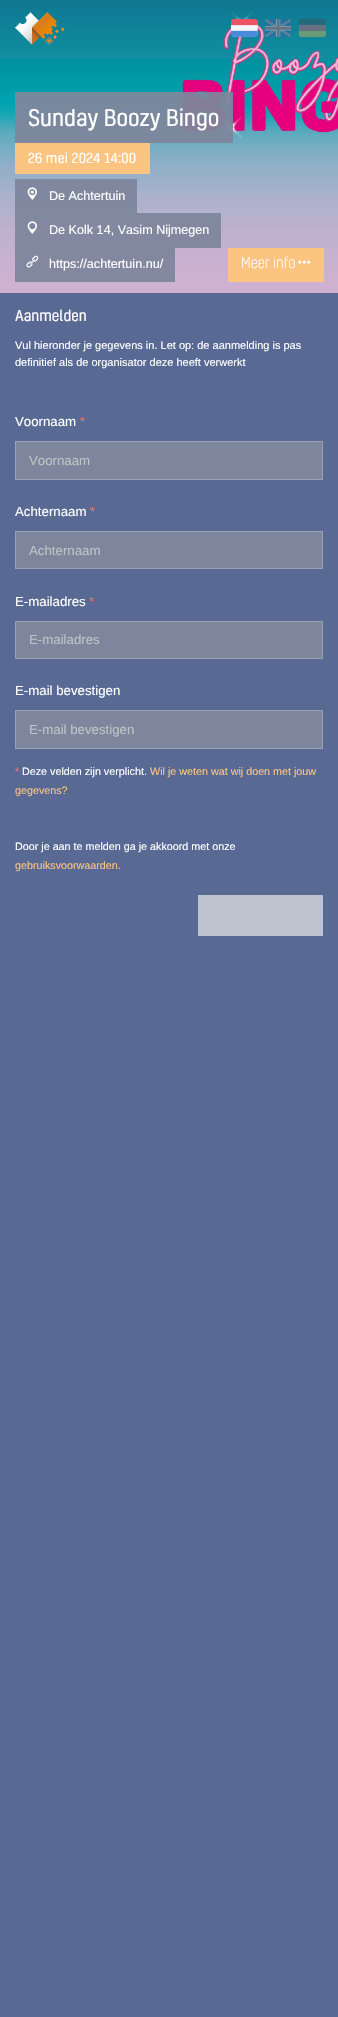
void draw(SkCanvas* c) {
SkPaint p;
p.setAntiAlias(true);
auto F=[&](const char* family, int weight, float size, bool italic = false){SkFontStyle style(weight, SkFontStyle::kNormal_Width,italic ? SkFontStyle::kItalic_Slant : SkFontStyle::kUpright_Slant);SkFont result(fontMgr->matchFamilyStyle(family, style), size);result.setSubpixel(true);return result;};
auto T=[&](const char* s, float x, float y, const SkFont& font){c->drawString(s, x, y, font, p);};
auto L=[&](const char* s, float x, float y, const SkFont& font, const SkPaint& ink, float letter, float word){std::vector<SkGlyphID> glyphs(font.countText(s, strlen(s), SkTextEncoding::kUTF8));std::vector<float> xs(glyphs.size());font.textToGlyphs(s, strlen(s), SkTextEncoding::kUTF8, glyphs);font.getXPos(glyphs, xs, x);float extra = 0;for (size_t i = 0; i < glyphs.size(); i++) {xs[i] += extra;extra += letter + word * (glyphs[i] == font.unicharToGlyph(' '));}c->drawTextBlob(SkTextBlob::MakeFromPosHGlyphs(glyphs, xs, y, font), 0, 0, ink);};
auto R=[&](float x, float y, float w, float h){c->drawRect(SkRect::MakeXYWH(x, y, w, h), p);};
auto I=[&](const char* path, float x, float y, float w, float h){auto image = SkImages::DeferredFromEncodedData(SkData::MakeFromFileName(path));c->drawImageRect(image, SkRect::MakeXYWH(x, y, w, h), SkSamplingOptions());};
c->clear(0xff586994);
I("1.png",0,0,338,293);
p.setColor(0x1f7d869c);
R(0,0,338,59);
I("2.png",15,12,50,33);
I("3.png",231,19,27,18);
I("4.png",264,19,28,18);
I("5.png",298,18,28,19);
p.setColor(0xfffbc481);
R(15,142,135,32);
p.setColor(0xf27d869c);
R(15,92,218,51);
auto f1 = F("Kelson",400,22);
p.setColor(0xffffffff);
T("Sunday Boozy Bingo",28,126,f1);
auto f2 = F("Kelson",400,13.25);
L("26 mei 2024 14:00",28,163,f2,p,.25,0);
p.setColor(0xf27d869c);
R(15,179,122,34);
I("6.png",27,187,10,13);
auto f3 = F("Arimo",400,12.6);
p.setColor(0xffffffff);
T("De Achtertuin",49,200,f3);
p.setColor(0xf27d869c);
R(15,213,206,35);
I("7.png",27,221,10,13);
p.setColor(0xffffffff);
T("De Kolk 14, Vasim Nijmegen",49,234,f3);
p.setColor(0xf27d869c);
R(15,248,160,34);
I("8.png",26,255,13,13);
p.setColor(0xffffffff);
T("https://achtertuin.nu/",49,268,f3);
p.setColor(0xfffbc481);
R(228,248,96,34);
auto f4 = F("Kelson",300,14.5);
p.setColor(0xffffffff);
T("Meer info",241,268,f4);
I("9.png",298,260,13,4);
auto f5 = F("Kelson",400,14.5);
T("Aanmelden",15,321,f5);
auto f6 = F("Arimo",400,11);
T("Vul hieronder je gegevens in. Let op: de aanmelding is pas",15,349,f6);
T("definitief als de organisator deze heeft verwerkt",15,366,f6);
auto f7 = F("Arimo",400,13.25);
T("Voornaam",15,426,f7);
p.setColor(0xffe57373);
T("*",80,426,f7);
p.setColor(0xff7d869c);
c->drawRect(SkRect::MakeXYWH(15.5,441.5,307,38),p);
p.setStroke(true);
p.setStrokeWidth(1);
p.setColor(0xff9aa1b2);
c->drawRect(SkRect::MakeXYWH(15.5,441.5,307,38),p);
p.setStroke(false);
p.setColor(0xffbdc3c3);
T("Voornaam",29,465,f7);
p.setColor(0xffffffff);
T("Achternaam",15,516,f7);
p.setColor(0xffe57373);
T("*",90,516,f7);
p.setColor(0xff7d869c);
c->drawRect(SkRect::MakeXYWH(15.5,531.5,307,37),p);
p.setStroke(true);
p.setColor(0xff9aa1b2);
c->drawRect(SkRect::MakeXYWH(15.5,531.5,307,37),p);
p.setStroke(false);
p.setColor(0xffbdc3c3);
T("Achternaam",29,555,f7);
p.setColor(0xffffffff);
T("E-mailadres",15,606,f7);
p.setColor(0xffe57373);
T("*",89,606,f7);
p.setColor(0xff7d869c);
c->drawRect(SkRect::MakeXYWH(15.5,621.5,307,37),p);
p.setStroke(true);
p.setColor(0xff9aa1b2);
c->drawRect(SkRect::MakeXYWH(15.5,621.5,307,37),p);
p.setStroke(false);
p.setColor(0xffbdc3c3);
T("E-mailadres",29,644,f7);
p.setColor(0xffffffff);
T("E-mail bevestigen",15,695,f7);
p.setColor(0xff7d869c);
c->drawRect(SkRect::MakeXYWH(15.5,710.5,307,38),p);
p.setStroke(true);
p.setColor(0xff9aa1b2);
c->drawRect(SkRect::MakeXYWH(15.5,710.5,307,38),p);
p.setStroke(false);
p.setColor(0xffbdc3c3);
T("E-mail bevestigen",29,734,f7);
auto f8 = F("Arimo",400,10.75);
p.setColor(0xffe57373);
T("*",15,775,f8);
p.setColor(0xffffffff);
T("Deze velden zijn verplicht.",22,775,f8);
p.setColor(0xfffbc481);
T("Wil je weten wat wij doen met jouw",150,775,f8);
T("gegevens?",15,794,f8);
p.setColor(0xffffffff);
T("Door je aan te melden ga je akkoord met onze",15,850,f8);
p.setColor(0xfffbc481);
T("gebruiksvoorwaarden.",15,869,f8);
p.setColor(0xffbdc2cf);
R(198,895,125,41);
}
